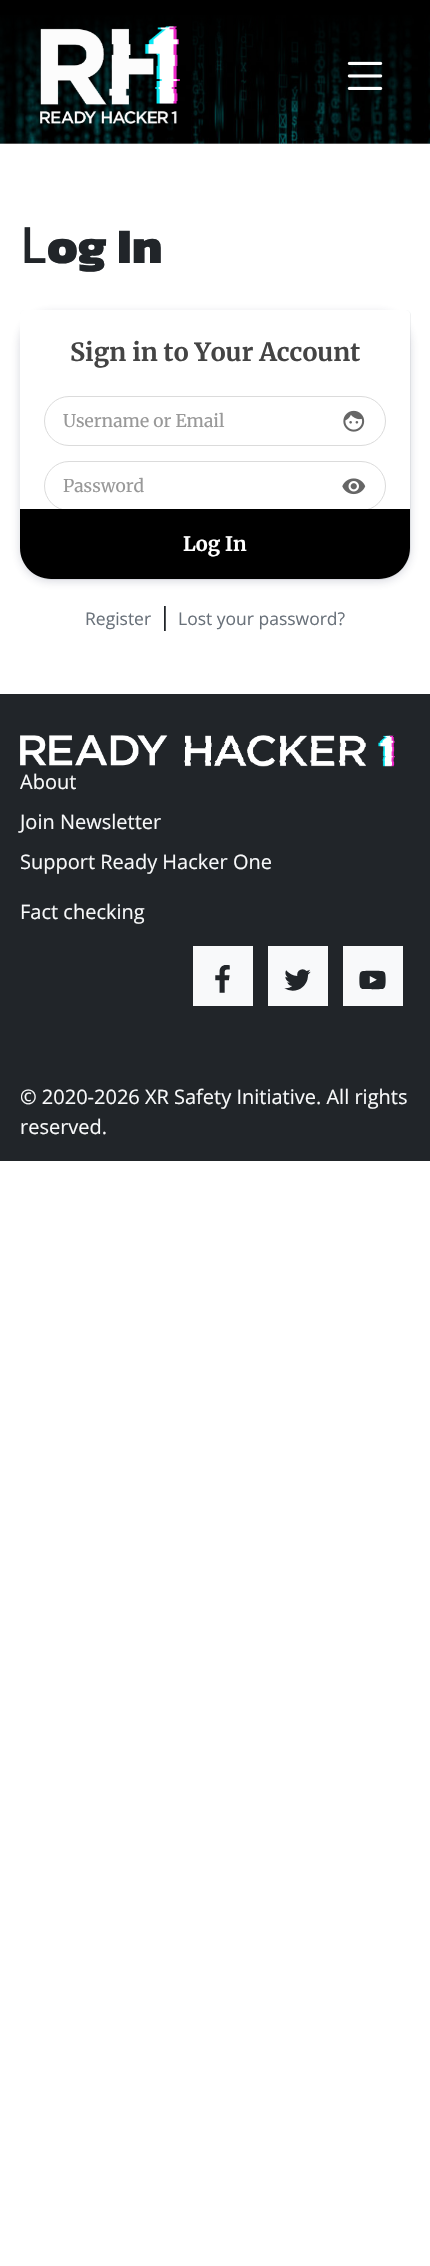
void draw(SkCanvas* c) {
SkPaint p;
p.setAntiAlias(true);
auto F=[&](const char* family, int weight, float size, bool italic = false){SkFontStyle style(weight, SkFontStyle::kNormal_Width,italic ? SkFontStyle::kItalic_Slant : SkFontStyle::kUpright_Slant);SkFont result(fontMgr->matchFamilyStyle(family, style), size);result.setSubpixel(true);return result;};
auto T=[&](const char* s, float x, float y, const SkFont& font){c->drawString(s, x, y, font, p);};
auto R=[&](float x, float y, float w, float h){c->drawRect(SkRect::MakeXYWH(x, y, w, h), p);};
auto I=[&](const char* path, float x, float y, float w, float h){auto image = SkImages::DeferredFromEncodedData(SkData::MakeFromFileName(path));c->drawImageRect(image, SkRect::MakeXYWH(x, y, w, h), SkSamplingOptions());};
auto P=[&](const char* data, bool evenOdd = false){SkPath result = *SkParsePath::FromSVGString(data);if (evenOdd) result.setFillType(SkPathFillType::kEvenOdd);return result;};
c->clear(0xffffffff);
I("3.png",0,15,430,129);
{
const SkColor colors[] = {0xff000000,0x00000000};
const float stops[] = {.1,1};
const SkPoint ends[] = {{215,0}, {215,144}};
p.setShader(SkGradientShader::MakeLinear(ends, colors, stops, 2, SkTileMode::kClamp));
p.setAlpha(255);
}
R(0,0,430,141);
I("1.png",40,26,140,98);
I("2.png",347,61,36,29);
auto f1 = F("Noto Sans",500,50);
p.setShader(nullptr);
p.setColor(0xff212529);
T("L",20,263,f1);
auto f2 = F("Kanit",800,50);
T("og In",47,263,f2);
p.setColor(0x3332375a);
p.setMaskFilter(SkMaskFilter::MakeBlur(kNormal_SkBlurStyle, 5));
c->drawRoundRect(SkRect::MakeXYWH(20,313,390,268),31,31,p);
p.setMaskFilter(nullptr);
p.setStroke(true);
p.setStrokeWidth(.6);
p.setColor(0x1a001428);
c->drawPath(P("M25 310.5h381c2.5 0 4.5 2 4.5 4.5v232c0 18-14.5 32.5-32.5 32.5h-325c-18 0-32.5-14.5-32.5-32.5v-232c0-2.5 2-4.5 4.5-4.5z"),p);
p.setStroke(false);
p.setColor(0xffffffff);
c->drawPath(P("M24 310h382c2 0 4 2 4 4v234c0 17-14 31-31 31h-328c-17 0-31-14-31-31v-234c0-2 2-4 4-4z"),p);
auto f3 = F("Merriweather",700,25);
p.setColor(0xff444444);
T("Sign in to Your Account",70,361,f3);
p.setStroke(true);
p.setStrokeWidth(1);
p.setColor(0xffdbdbdb);
c->drawRoundRect(SkRect::MakeXYWH(44.5,396.5,341,49),24.5,24.5,p);
auto f4 = F("Merriweather",400,17.5);
p.setStroke(false);
p.setColor(0xff999999);
T("Username or Email",63,427,f4);
I("4.png",343,410,22,22);
p.setStroke(true);
p.setColor(0xffdbdbdb);
c->drawRoundRect(SkRect::MakeXYWH(44.5,461.5,341,49),24.5,24.5,p);
p.setStroke(false);
p.setColor(0xff999999);
T("Password",63,492,f4);
I("5.png",342,478,24,17);
p.setColor(0xff000000);
c->drawPath(P("M20 509h390v39c0 17-14 31-31 31h-328c-17 0-31-14-31-31z"),p);
auto f5 = F("Merriweather",700,20);
p.setColor(0xffffffff);
T("Log In",183,551,f5);
auto f6 = F("Open Sans",400,17.5);
p.setColor(0xff69717a);
T("Register",85,625,f6);
auto f7 = F("Open Sans",400,25);
p.setColor(0xff212529);
T("|",158,625,f7);
p.setColor(0xff69717a);
T("Lost your password?",178,625,f6);
p.setColor(0xff212529);
R(0,694,430,467);
I("6.png",20,735,375,32);
auto f8 = F("Open Sans",400,20);
p.setColor(0xfff8f9fa);
T("About",20,789,f8);
T("Join Newsletter",20,829,f8);
T("Support Ready Hacker One",20,869,f8);
T("Fact checking",20,919,f8);
R(193,946,60,60);
I("7.png",215,965,15,28);
R(268,946,60,60);
I("8.png",284,969,27,22);
R(343,946,60,60);
I("9.png",359,970,27,20);
T("© 2020-2026 XR Safety Initiative. All rights",20,1104,f8);
T("reserved.",20,1134,f8);
}
